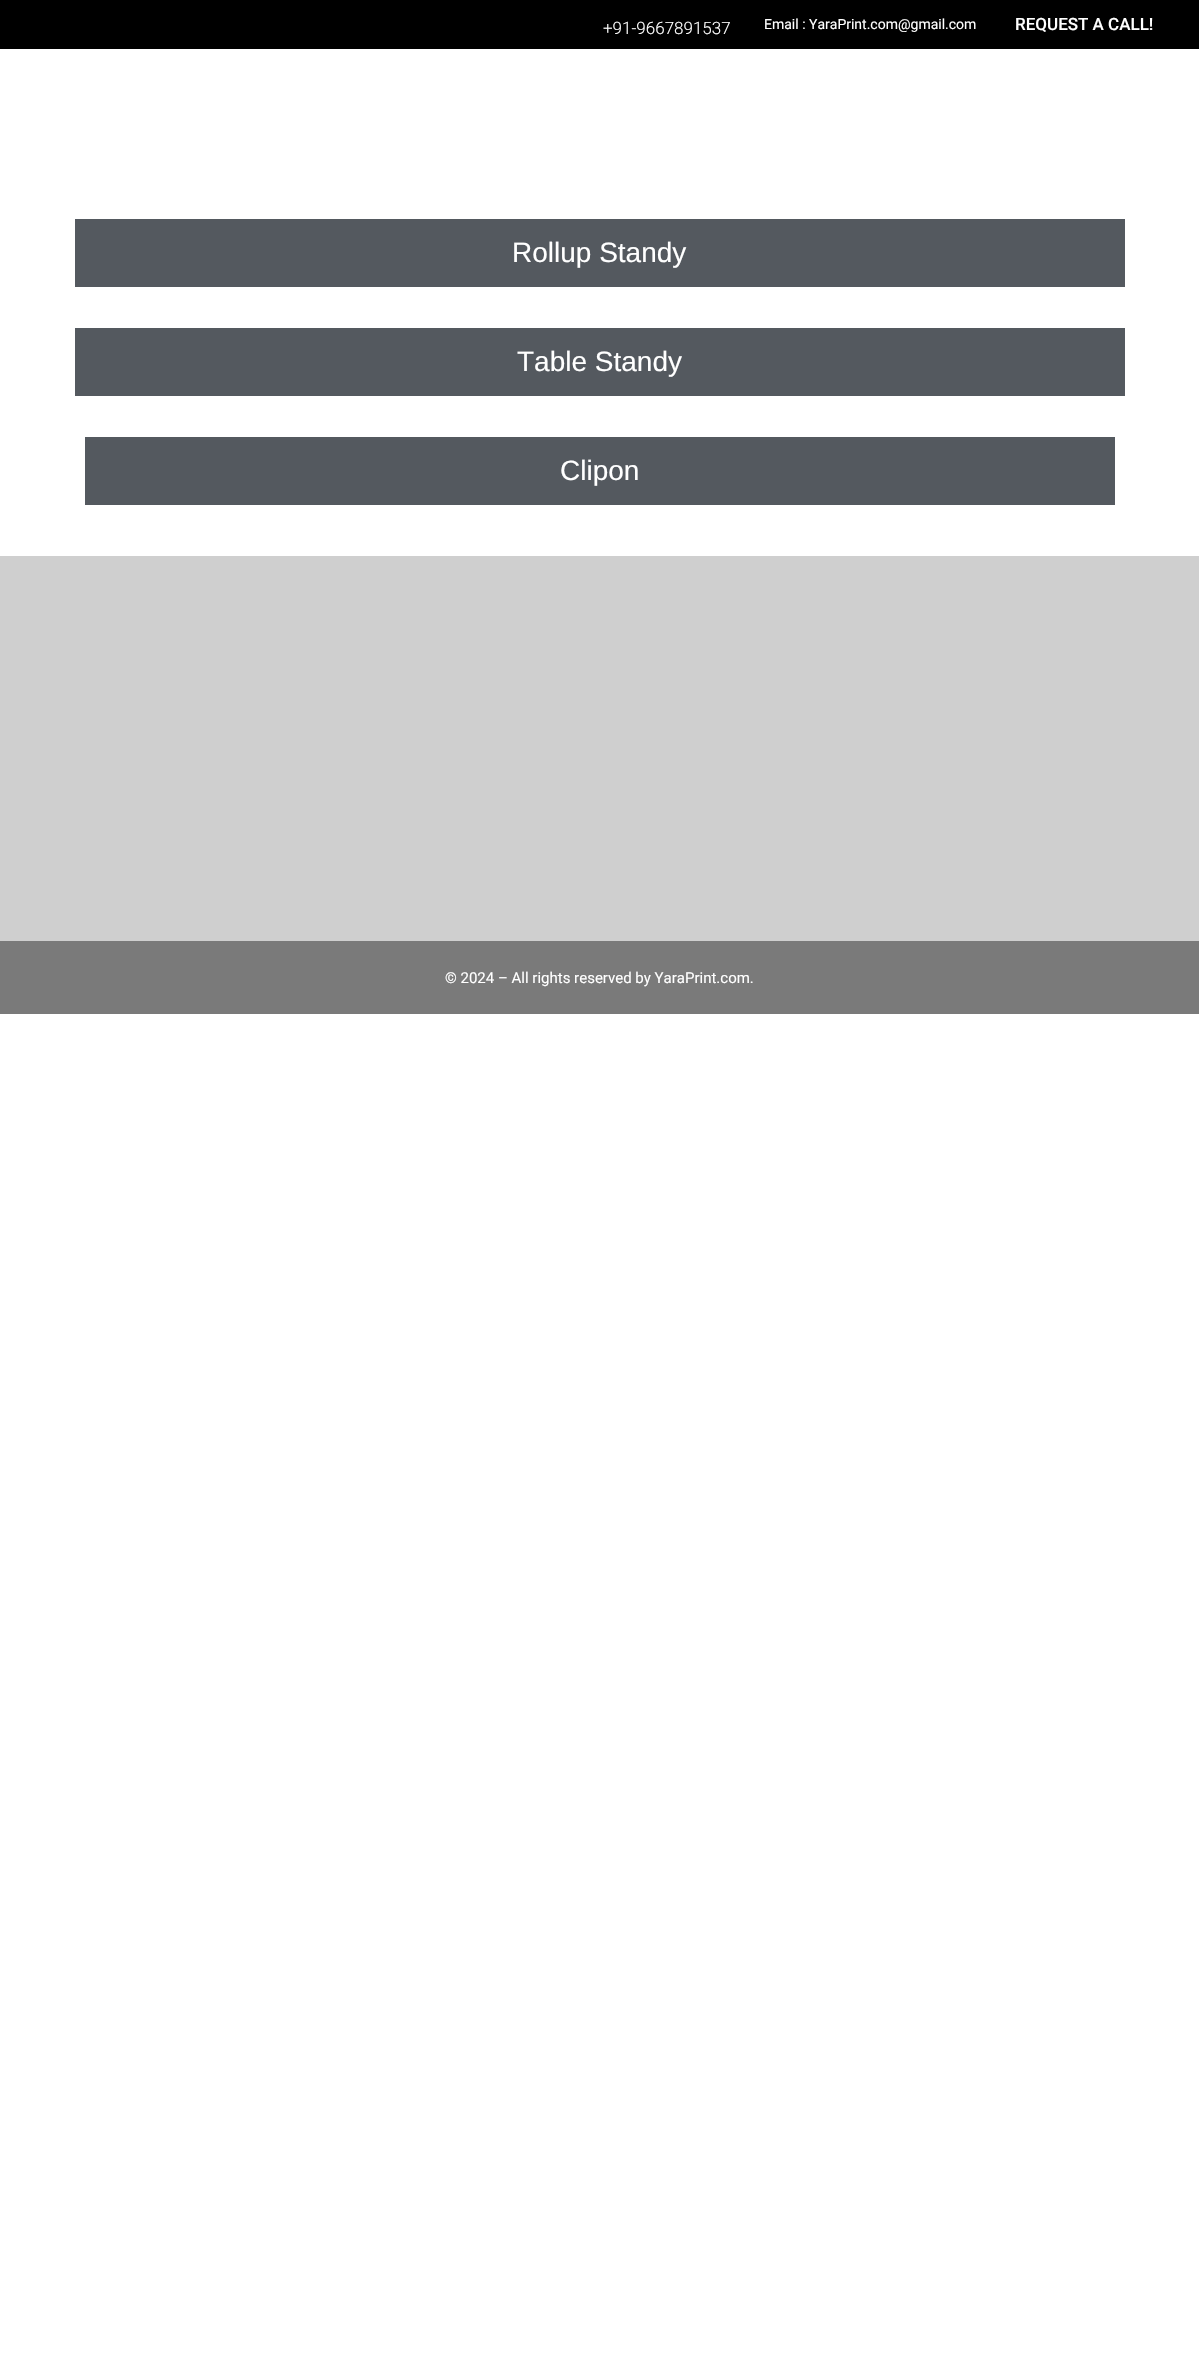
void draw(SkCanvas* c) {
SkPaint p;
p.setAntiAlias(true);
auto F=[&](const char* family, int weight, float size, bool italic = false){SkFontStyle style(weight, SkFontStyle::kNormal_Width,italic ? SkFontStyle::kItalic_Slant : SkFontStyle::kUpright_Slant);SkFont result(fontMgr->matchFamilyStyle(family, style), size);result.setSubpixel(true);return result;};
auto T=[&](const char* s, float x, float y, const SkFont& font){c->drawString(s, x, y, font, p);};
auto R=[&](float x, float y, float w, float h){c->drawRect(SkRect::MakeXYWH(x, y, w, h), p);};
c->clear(0xffffffff);
p.setColor(0xff000000);
R(0,0,1199,49);
auto f1 = F("Roboto",300,17);
p.setColor(0xffffffff);
T("+91-9667891537",603,34,f1);
auto f2 = F("Roboto",400,14);
T("Email : YaraPrint.com@gmail.com",764,29,f2);
auto f3 = F("Roboto",500,17);
T("REQUEST A CALL!",1015,30,f3);
p.setColor(0xff54595f);
R(75,219,1050,68);
auto f4 = F("Liberation Sans",400,28);
p.setColor(0xffffffff);
T("Rollup Standy",512,262,f4);
p.setColor(0xff54595f);
R(75,328,1050,68);
p.setColor(0xffffffff);
T("Table Standy",517,371,f4);
p.setColor(0xff54595f);
R(85,437,1030,68);
p.setColor(0xffffffff);
T("Clipon",560,480,f4);
p.setColor(0xffcfcfcf);
R(0,556,1199,385);
p.setColor(0xff7a7a7a);
R(0,941,1199,73);
auto f5 = F("Roboto",400,15);
p.setColor(0xffffffff);
T("© 2024 – All rights reserved by YaraPrint.com.",445,983,f5);
}
